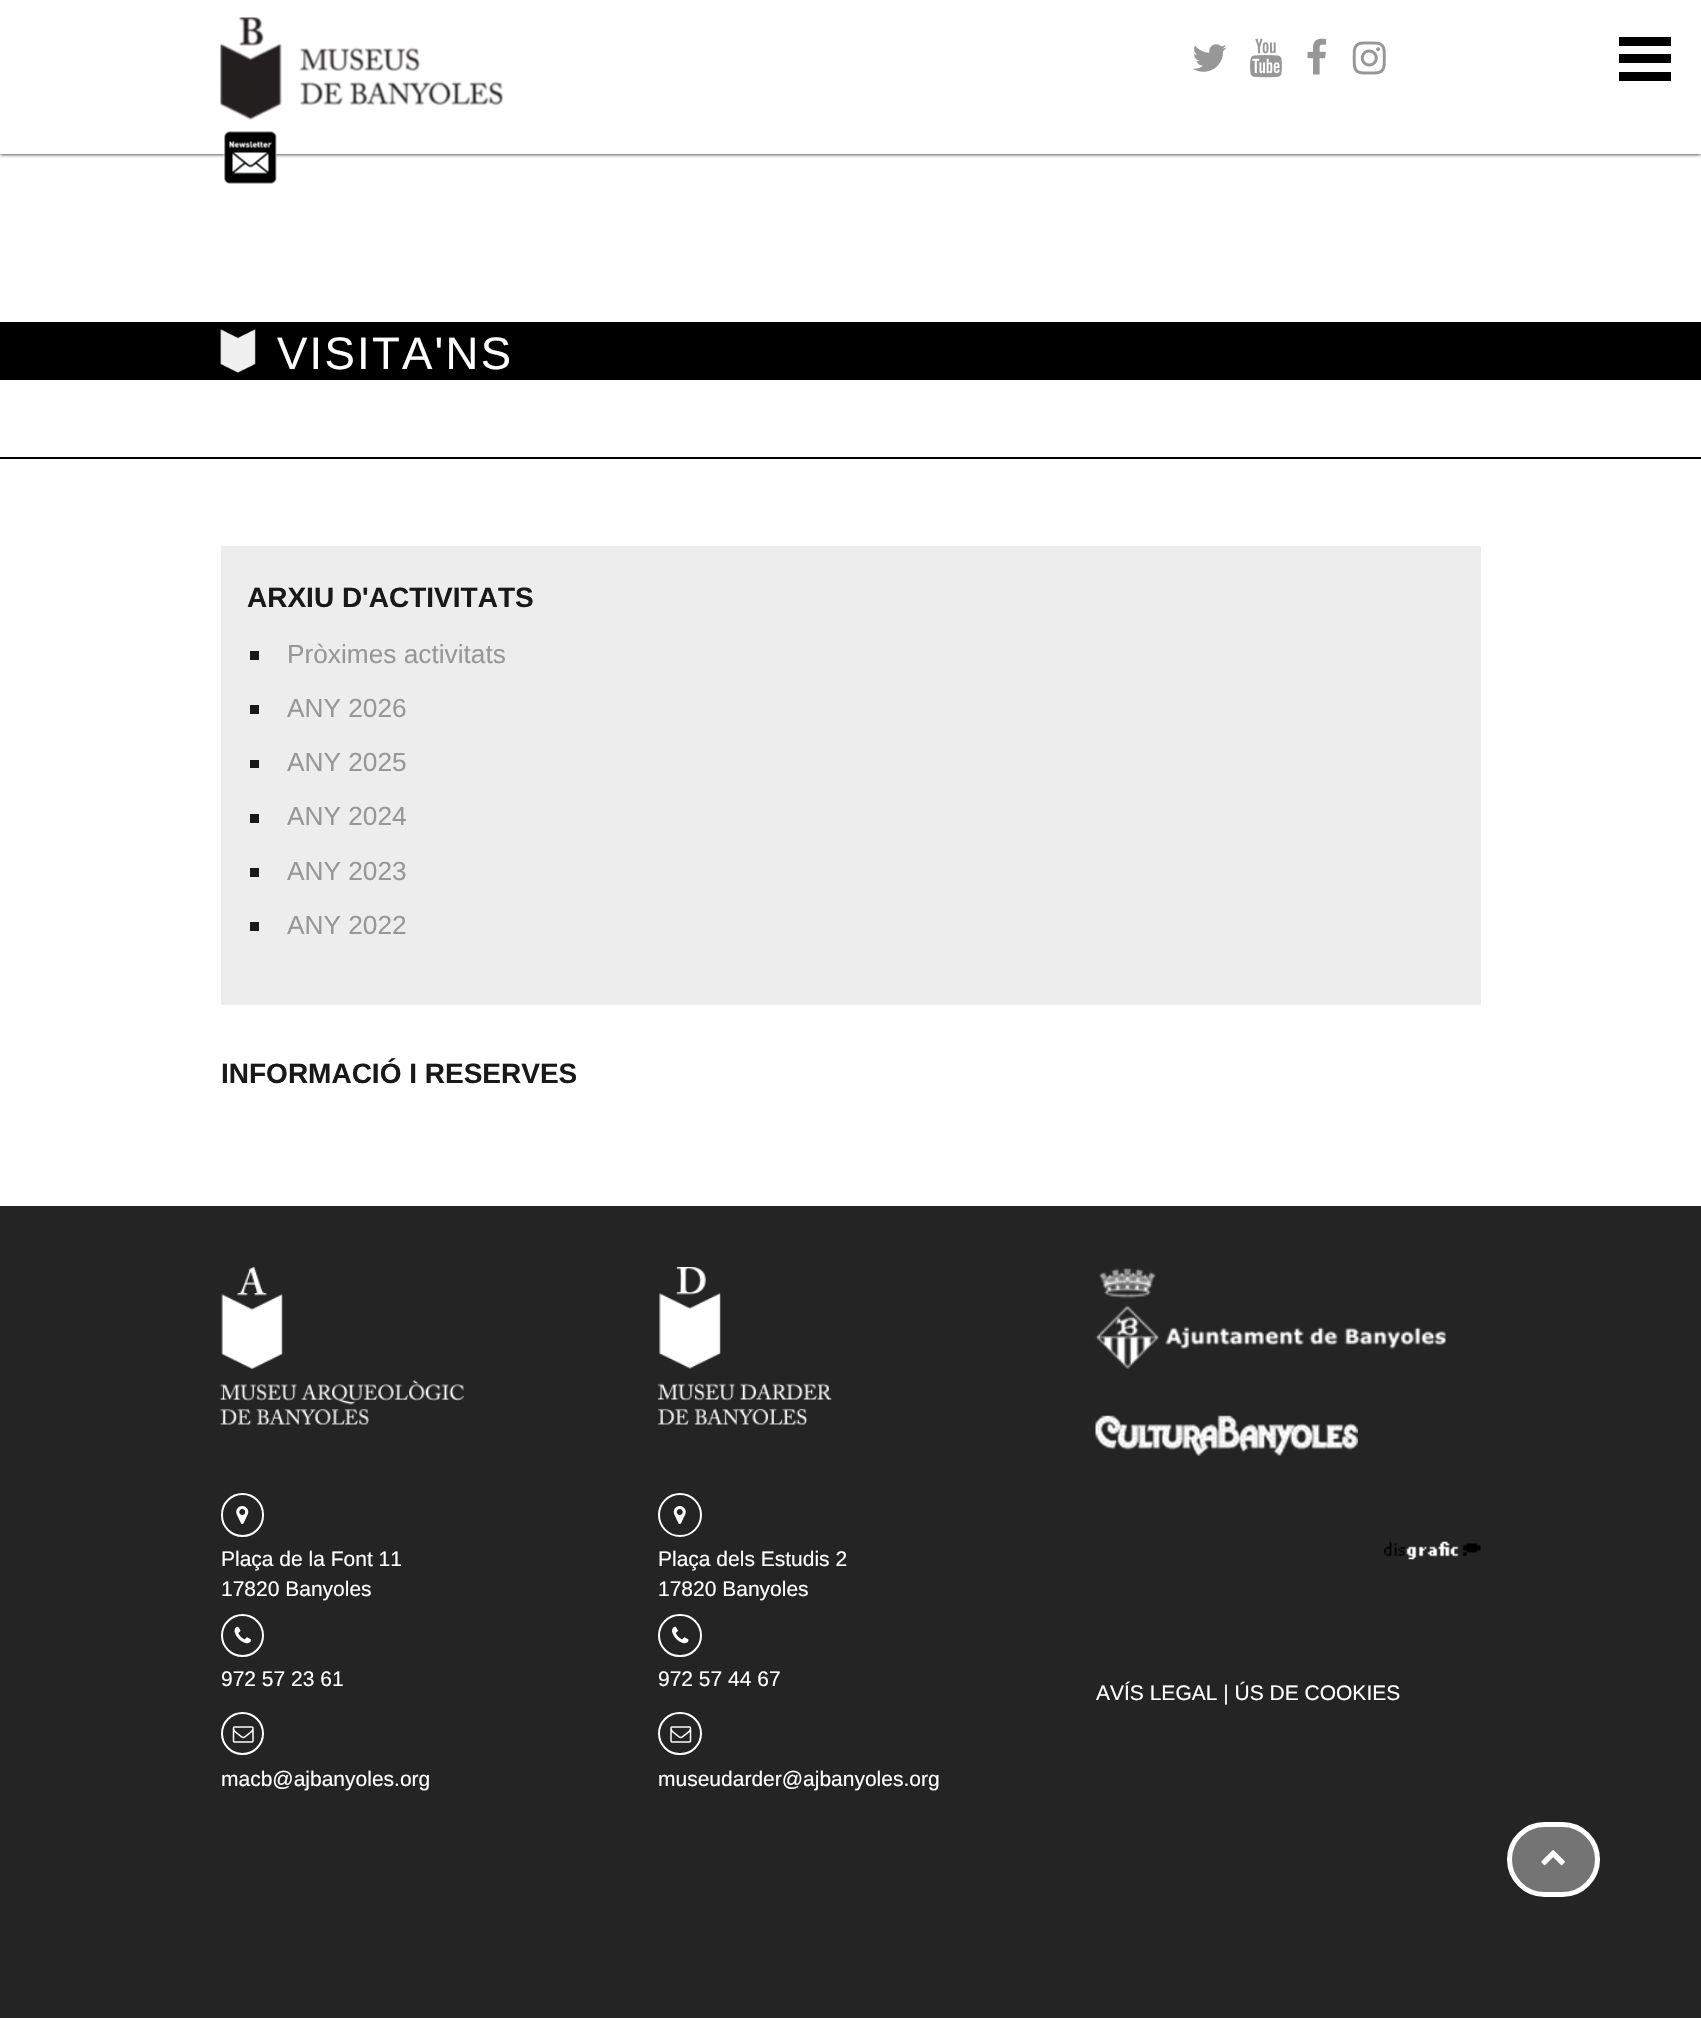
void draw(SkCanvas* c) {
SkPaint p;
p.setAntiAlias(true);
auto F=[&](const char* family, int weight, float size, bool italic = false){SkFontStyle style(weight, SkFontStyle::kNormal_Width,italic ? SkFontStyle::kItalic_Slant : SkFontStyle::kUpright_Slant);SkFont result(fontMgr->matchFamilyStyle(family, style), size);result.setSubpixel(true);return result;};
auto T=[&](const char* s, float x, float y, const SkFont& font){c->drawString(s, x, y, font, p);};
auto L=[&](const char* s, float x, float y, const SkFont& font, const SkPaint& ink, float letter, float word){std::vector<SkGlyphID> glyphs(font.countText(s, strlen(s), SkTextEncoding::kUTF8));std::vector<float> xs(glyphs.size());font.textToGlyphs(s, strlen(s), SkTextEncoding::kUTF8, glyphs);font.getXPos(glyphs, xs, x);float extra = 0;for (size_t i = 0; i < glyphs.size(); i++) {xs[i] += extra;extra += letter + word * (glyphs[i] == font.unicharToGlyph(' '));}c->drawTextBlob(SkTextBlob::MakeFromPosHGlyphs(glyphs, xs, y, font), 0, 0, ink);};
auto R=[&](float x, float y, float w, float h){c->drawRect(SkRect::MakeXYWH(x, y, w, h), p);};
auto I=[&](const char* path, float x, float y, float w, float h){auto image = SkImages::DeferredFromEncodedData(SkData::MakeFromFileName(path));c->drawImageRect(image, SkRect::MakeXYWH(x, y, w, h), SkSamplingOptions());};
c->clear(0xff242424);
p.setColor(0xffffffff);
R(0,0,1701,1206);
c->save();
c->clipRect(SkRect::MakeXYWH(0,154,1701,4));
p.setColor(0xff000000);
p.setMaskFilter(SkMaskFilter::MakeBlur(kNormal_SkBlurStyle, 2));
c->drawRect(SkRect::MakeXYWH(0,0,1701,154),p);
p.setMaskFilter(nullptr);
c->restore();
R(1619,37,52,9);
R(1619,54,52,9);
R(1619,72,52,9);
I("1.png",220,17,283,103);
I("2.png",1193,44,34,28);
I("3.png",1250,38,32,40);
I("4.png",1307,38,20,37);
I("5.png",1352,41,34,34);
I("6.png",223,131,54,53);
R(0,322,1701,58);
I("7.png",220,329,36,44);
auto f1 = F("Liberation Sans",400,45.5);
p.setColor(0xffffffff);
L("VISITA'NS",277,369,f1,p,2.25,0);
p.setColor(0xff000000);
R(0,457,1701,2);
p.setColor(0xffededed);
R(221,546,1260,459);
auto f2 = F("Liberation Sans",700,28);
p.setColor(0xff191919);
T("ARXIU D'ACTIVITATS",247,607,f2);
R(250,651,9,9);
auto f3 = F("Liberation Sans",400,26.25);
p.setColor(0xff989798);
T("Pròximes activitats",287,663,f3);
p.setColor(0xff191919);
R(250,705,9,9);
p.setColor(0xff989798);
T("ANY 2026",287,717,f3);
p.setColor(0xff191919);
R(250,760,9,8);
p.setColor(0xff989798);
T("ANY 2025",287,771,f3);
p.setColor(0xff191919);
R(250,814,9,9);
p.setColor(0xff989798);
T("ANY 2024",287,825,f3);
p.setColor(0xff191919);
R(250,868,9,9);
p.setColor(0xff989798);
T("ANY 2023",287,880,f3);
p.setColor(0xff191919);
R(250,922,9,9);
p.setColor(0xff989798);
T("ANY 2022",287,934,f3);
p.setColor(0xff191919);
T("INFORMACIÓ I RESERVES",221,1083,f2);
p.setColor(0xff747474);
c->drawRoundRect(SkRect::MakeXYWH(1509.5,1824.5,88,70),35,35,p);
p.setStroke(true);
p.setStrokeWidth(5);
p.setColor(0xffffffff);
c->drawRoundRect(SkRect::MakeXYWH(1509.5,1824.5,88,70),35,35,p);
I("8.png",1541,1850,24,16);
I("9.png",220,1267,244,158);
p.setStrokeWidth(2);
c->drawRoundRect(SkRect::MakeXYWH(222,1494,41,42),20.5,20.5,p);
I("10.png",236,1506,13,18);
auto f4 = F("Liberation Sans",400,21);
p.setStroke(false);
T("Plaça de la Font 11",221,1566,f4);
T("17820 Banyoles",221,1596,f4);
p.setStroke(true);
c->drawCircle(242.5,1635.5,20.5,p);
I("11.png",234,1626,17,18);
p.setStroke(false);
T("972 57 23 61",221,1686,f4);
p.setStroke(true);
c->drawCircle(242.5,1733.5,20.5,p);
I("12.png",232,1726,22,17);
p.setStroke(false);
T("macb@ajbanyoles.org",221,1786,f4);
I("13.png",658,1267,174,158);
p.setStroke(true);
c->drawCircle(680,1515,21,p);
I("14.png",673,1506,13,18);
p.setStroke(false);
T("Plaça dels Estudis 2",658,1566,f4);
T("17820 Banyoles",658,1596,f4);
p.setStroke(true);
c->drawRoundRect(SkRect::MakeXYWH(659,1615,42,41),20.5,20.5,p);
I("15.png",672,1626,17,18);
p.setStroke(false);
T("972 57 44 67",658,1686,f4);
p.setStroke(true);
c->drawRoundRect(SkRect::MakeXYWH(659,1713,42,41),20.5,20.5,p);
I("16.png",670,1726,22,17);
p.setStroke(false);
T("museudarder@ajbanyoles.org",658,1786,f4);
I("17.png",1095,1268,351,101);
I("18.png",1095,1415,263,41);
I("19.png",1384,1541,97,19);
T("AVÍS LEGAL | ÚS DE COOKIES",1096,1700,f4);
}
